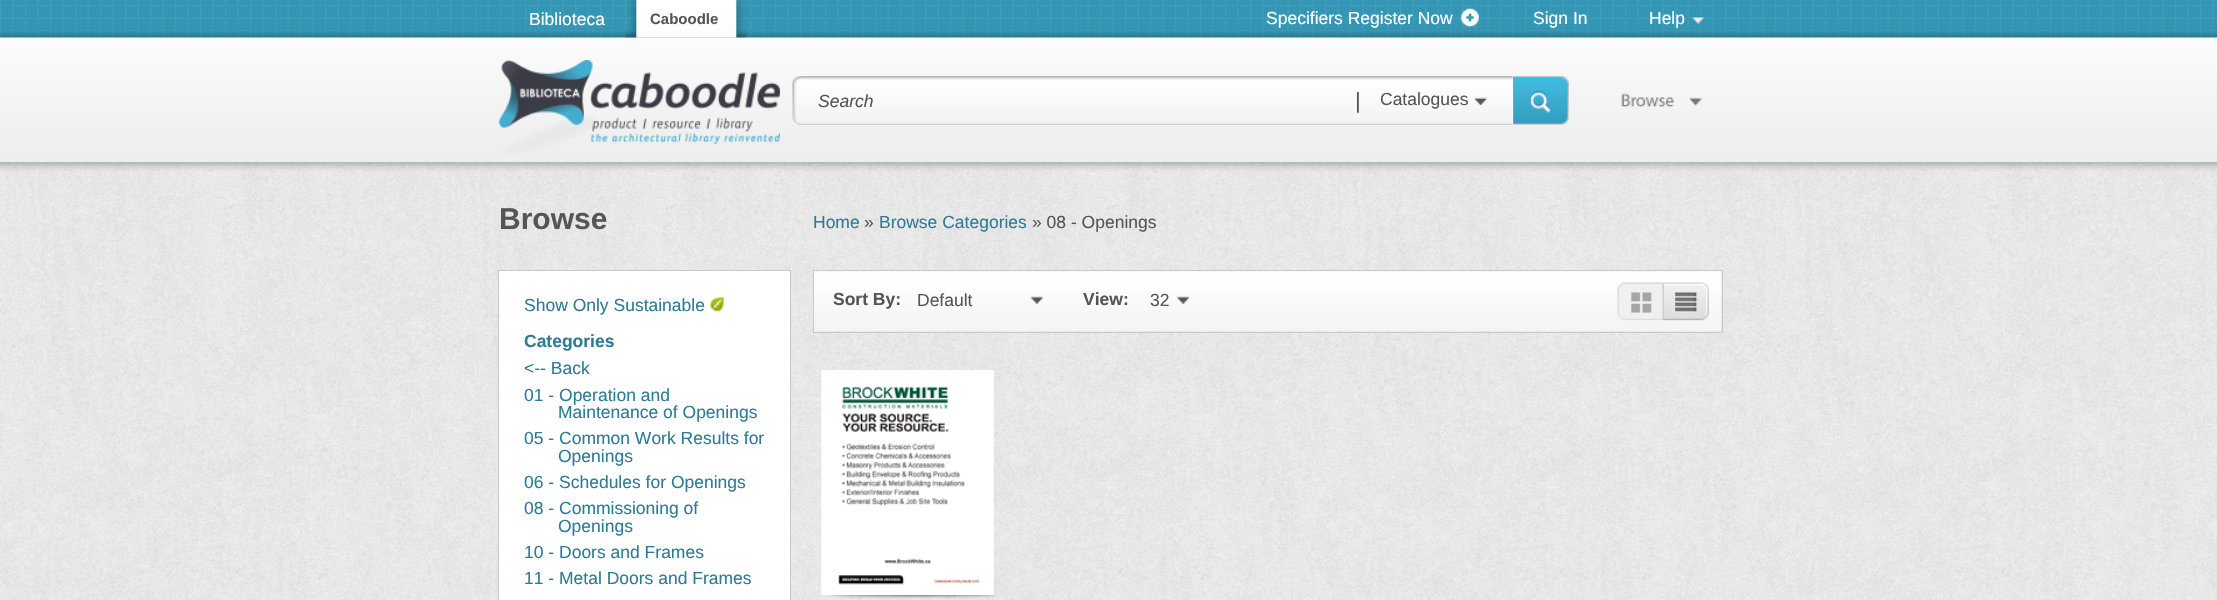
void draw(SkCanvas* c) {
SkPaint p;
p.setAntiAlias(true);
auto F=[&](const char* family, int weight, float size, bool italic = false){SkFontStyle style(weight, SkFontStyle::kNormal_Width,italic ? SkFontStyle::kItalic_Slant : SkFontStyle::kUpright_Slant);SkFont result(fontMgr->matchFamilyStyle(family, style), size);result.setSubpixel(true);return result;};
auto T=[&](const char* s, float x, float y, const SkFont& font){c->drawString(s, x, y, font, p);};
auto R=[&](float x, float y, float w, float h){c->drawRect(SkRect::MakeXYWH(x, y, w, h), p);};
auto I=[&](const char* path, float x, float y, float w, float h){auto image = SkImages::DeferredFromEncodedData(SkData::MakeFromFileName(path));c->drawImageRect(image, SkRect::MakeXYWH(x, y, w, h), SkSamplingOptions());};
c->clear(0xffffffff);
I("1.png",0,37,2217,126);
I("2.png",0,0,2217,38);
auto f1 = F("Liberation Sans",400,17.5);
p.setColor(0xffffffff);
T("Biblioteca",529,25,f1);
I("6.png",0,37,2217,126);
I("3.png",625,0,122,38);
auto f2 = F("Liberation Sans",700,15);
p.setColor(0xff555555);
T("Caboodle",650,24,f2);
p.setColor(0xffffffff);
T("Specifiers Register Now",1266,24,f1);
I("4.png",1461,8,18,19);
T("Sign In",1533,24,f1);
T("Help",1649,24,f1);
I("5.png",1692,17,12,7);
I("7.png",498,60,282,94);
R(793,76,720,49);
I("8.png",792,76,721,49);
auto f3 = F("Liberation Sans",400,17.5,true);
p.setColor(0xff555555);
T("Search",818,107,f3);
auto f4 = F("Liberation Sans",400,22);
T("|",1355,108,f4);
T("Catalogues",1380,105,f1);
I("9.png",1474,97,14,8);
I("10.png",1513,76,56,49);
I("11.png",1621,93,82,14);
I("12.png",0,162,2217,438);
auto f5 = F("Liberation Sans",700,30);
T("Browse",499,229,f5);
p.setColor(0xffffffff);
c->drawRect(SkRect::MakeXYWH(498.5,270.5,292,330),p);
p.setStroke(true);
p.setStrokeWidth(1);
p.setColor(0xffc8c8c8);
c->drawRect(SkRect::MakeXYWH(498.5,270.5,292,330),p);
p.setStroke(false);
p.setColor(0xff2e7b93);
T("Show Only Sustainable",524,311,f1);
I("13.png",710,297,14,15);
auto f6 = F("Liberation Sans",700,17.5);
T("Categories",524,347,f6);
T("<-- Back",524,374,f1);
T("01 - Operation and",524,401,f1);
T("Maintenance of Openings",558,418,f1);
T("05 - Common Work Results for",524,444,f1);
T("Openings",558,462,f1);
T("06 - Schedules for Openings",524,488,f1);
T("08 - Commissioning of",524,514,f1);
T("Openings",558,532,f1);
T("10 - Doors and Frames",524,558,f1);
T("11 - Metal Doors and Frames",524,584,f1);
T("Home",813,228,f1);
p.setColor(0xff555555);
T("»",864,228,f1);
p.setColor(0xff2e7b93);
T("Browse Categories",879,228,f1);
p.setColor(0xff555555);
T("» 08 - Openings",1032,228,f1);
I("14.png",814,271,908,61);
p.setStroke(true);
p.setColor(0xffc8c8c8);
c->drawRect(SkRect::MakeXYWH(813.5,270.5,909,62),p);
p.setStroke(false);
p.setColor(0xff555555);
T("Sort By:",833,305,f6);
I("15.png",1030,296,14,8);
T("Default",917,306,f1);
T("View:",1083,305,f6);
I("16.png",1176,296,14,8);
T("32",1150,306,f1);
I("17.png",1617,282,92,39);
I("18.png",821,370,173,225);
I("19.png",831,595,166,4);
}
